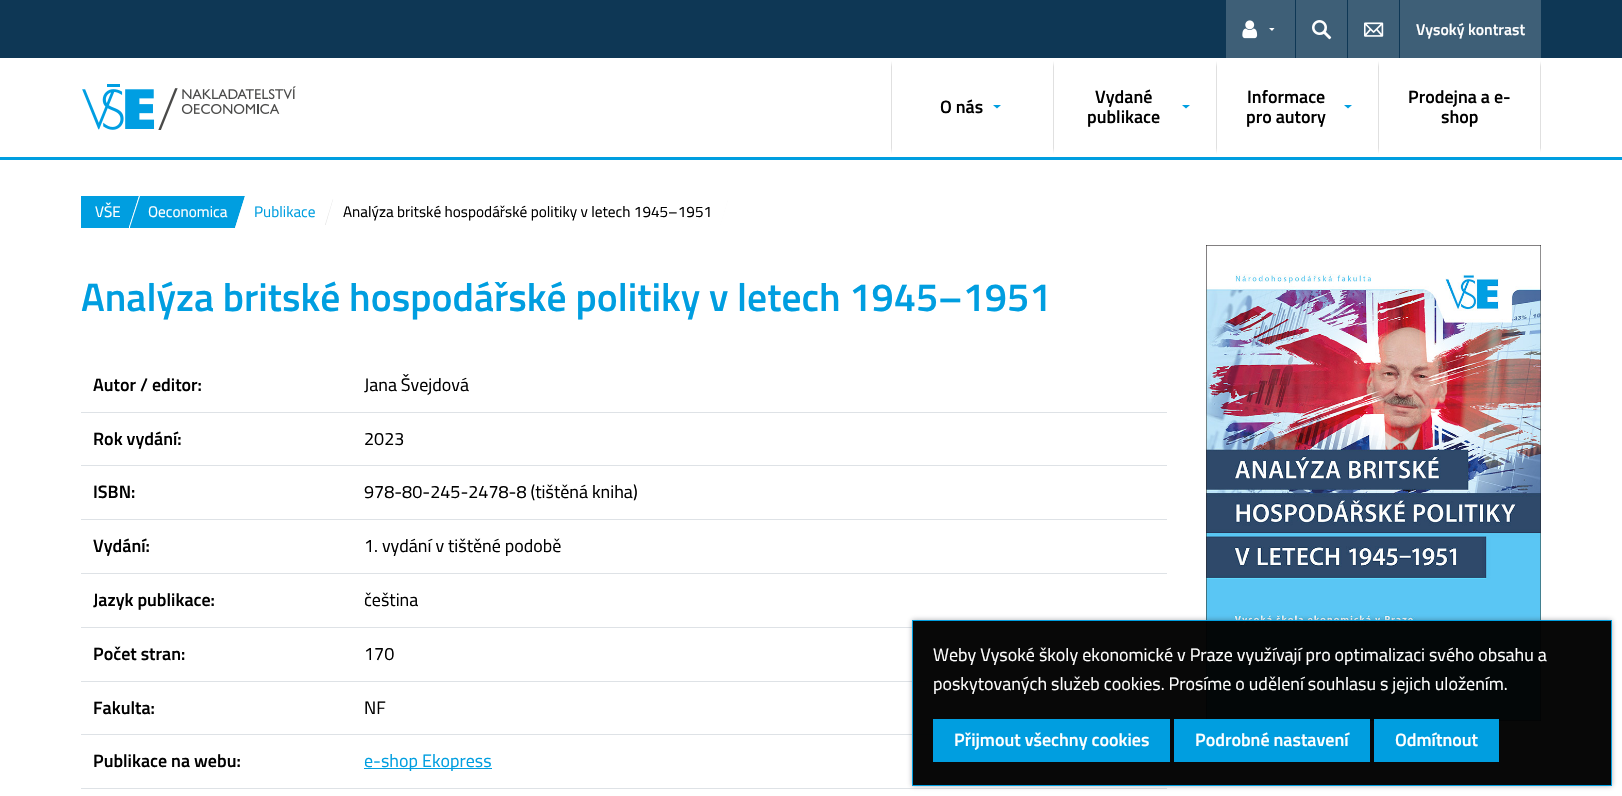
void draw(SkCanvas* c) {
SkPaint p;
p.setAntiAlias(true);
auto F=[&](const char* family, int weight, float size, bool italic = false){SkFontStyle style(weight, SkFontStyle::kNormal_Width,italic ? SkFontStyle::kItalic_Slant : SkFontStyle::kUpright_Slant);SkFont result(fontMgr->matchFamilyStyle(family, style), size);result.setSubpixel(true);return result;};
auto T=[&](const char* s, float x, float y, const SkFont& font){c->drawString(s, x, y, font, p);};
auto R=[&](float x, float y, float w, float h){c->drawRect(SkRect::MakeXYWH(x, y, w, h), p);};
auto I=[&](const char* path, float x, float y, float w, float h){auto image = SkImages::DeferredFromEncodedData(SkData::MakeFromFileName(path));c->drawImageRect(image, SkRect::MakeXYWH(x, y, w, h), SkSamplingOptions());};
auto P=[&](const char* data, bool evenOdd = false){SkPath result = *SkParsePath::FromSVGString(data);if (evenOdd) result.setFillType(SkPathFillType::kEvenOdd);return result;};
c->clear(0xffffffff);
p.setColor(0xff0e3755);
R(0,0,1622,58);
p.setColor(0xff3e5f77);
R(1226,0,69,58);
I("1.png",1242,20,16,19);
p.setColor(0xffffffff);
c->drawPath(P("M1269 28h5.5l-2.5 3z"),p);
p.setColor(0xff3e5f77);
R(1296,0,51,58);
I("2.png",1312,20,20,20);
R(1348,0,51,58);
I("3.png",1364,22,20,15);
R(1400,0,141,58);
auto f1 = F("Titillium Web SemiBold",600,15.75);
p.setColor(0xffffffff);
T("Vysoký kontrast",1416,35,f1);
p.setColor(0xff009ee0);
R(0,157,1622,3);
I("4.png",82,84,214,46);
p.setColor(0xffe0e0e0);
c->drawPath(P("M891 154v-93l1 6v81z"),p);
auto f2 = F("Titillium Web SemiBold",600,18);
p.setColor(0xff000000);
T("O nás",940,113,f2);
p.setColor(0xff009ee0);
c->drawPath(P("M993 105h8l-4 3.5z"),p);
p.setColor(0xffe0e0e0);
c->drawPath(P("M1053 154v-93l1 6v81z"),p);
p.setColor(0xff000000);
T("Vydané",1095,103,f2);
p.setColor(0xff009ee0);
c->drawPath(P("M1182 105h8l-4 3.5z"),p);
p.setColor(0xff000000);
T("publikace",1087,123,f2);
p.setColor(0xffe0e0e0);
c->drawPath(P("M1216 154v-93l1 6v81z"),p);
p.setColor(0xff000000);
T("Informace",1247,103,f2);
p.setColor(0xff009ee0);
c->drawPath(P("M1344 105h8l-4 3.5z"),p);
p.setColor(0xff000000);
T("pro autory",1246,123,f2);
p.setColor(0xffe0e0e0);
c->drawPath(P("M1541 61v93l-1-6v-81z"),p);
p.setColor(0xffffffff);
c->drawPath(P("M1541 154h-163l1-6h161z"),p);
p.setColor(0xffe0e0e0);
c->drawPath(P("M1378 154v-93l1 6v81z"),p);
p.setColor(0xff000000);
T("Prodejna a e-",1408,103,f2);
T("shop",1441,123,f2);
p.setColor(0xff009ee0);
c->drawPath(P("M81 196v32h48l10-32z"),p);
auto f3 = F("Titillium Web",400,15.3);
p.setColor(0xffffffff);
T("VŠE",95,217,f3);
c->drawPath(P("M129 227l10-31h106l-10 32h-106z"),p);
p.setColor(0xff009ee0);
c->drawPath(P("M130 227l10-31h105l-10 32h-105z"),p);
p.setColor(0xffffffff);
T("Oeconomica",148,217,f3);
c->drawPath(P("M235 228l10-32h88l-9 32z"),p);
p.setColor(0xff009ee0);
T("Publikace",254,217,f3);
p.setColor(0xffe0e0e0);
c->drawPath(P("M325 225l8-26h395l-8 26z"),p);
p.setColor(0xffffffff);
c->drawPath(P("M325 227l9-31h395v1l-9 31h-395z"),p);
p.setColor(0xff000000);
T("Analýza britské hospodářské politiky v letech 1945–1951",343,217,f3);
auto f4 = F("Titillium Web SemiBold",600,39.6);
p.setColor(0xff009ee0);
T("Analýza britské hospodářské politiky v letech 1945–1951",81,311,f4);
p.setColor(0xff000000);
T("Autor / editor:",93,391,f2);
auto f5 = F("Titillium Web",400,18);
T("Jana Švejdová",364,391,f5);
T("Rok vydání:",93,445,f2);
p.setColor(0xffdee2e6);
R(81,412,1086,1);
p.setColor(0xff000000);
T("2023",364,445,f5);
T("ISBN:",93,498,f2);
p.setColor(0xffdee2e6);
R(81,465,1086,1);
p.setColor(0xff000000);
T("978-80-245-2478-8 (tištěná kniha)",364,498,f5);
T("Vydání:",93,552,f2);
p.setColor(0xffdee2e6);
R(81,519,1086,1);
p.setColor(0xff000000);
T("1. vydání v tištěné podobě",364,552,f5);
T("Jazyk publikace:",93,606,f2);
p.setColor(0xffdee2e6);
R(81,573,1086,1);
p.setColor(0xff000000);
T("čeština",364,606,f5);
T("Počet stran:",93,660,f2);
p.setColor(0xffdee2e6);
R(81,627,1086,1);
p.setColor(0xff000000);
T("170",364,660,f5);
T("Fakulta:",93,714,f2);
p.setColor(0xffdee2e6);
R(81,681,1086,1);
p.setColor(0xff000000);
T("NF",364,714,f5);
T("Publikace na webu:",93,767,f2);
p.setColor(0xffdee2e6);
R(81,734,852,1);
p.setColor(0xff009ee0);
R(364,768,128,1);
T("e-shop Ekopress",364,767,f5);
p.setColor(0xffdee2e6);
R(81,788,1086,1);
I("5.png",1206,245,335,476);
c->save();
c->clipPath(P("M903 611h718v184h-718zm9 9h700v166h-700z",true),true);
p.setColor(0x66343a40);
p.setMaskFilter(SkMaskFilter::MakeBlur(kNormal_SkBlurStyle, 2.5));
c->drawRect(SkRect::MakeXYWH(912,620,700,166),p);
p.setMaskFilter(nullptr);
c->restore();
p.setColor(0xf7000000);
c->drawRect(SkRect::MakeXYWH(912.5,620.5,699,165),p);
p.setStroke(true);
p.setStrokeWidth(1);
p.setColor(0xff009ee0);
c->drawRect(SkRect::MakeXYWH(912.5,620.5,699,165),p);
p.setStroke(false);
p.setColor(0xffffffff);
T("Weby Vysoké školy ekonomické v Praze využívají pro optimalizaci svého obsahu a",933,661,f5);
T("poskytovaných služeb cookies. Prosíme o udělení souhlasu s jejich uložením.",933,690,f5);
p.setColor(0xff009ee0);
R(933,719,237,43);
p.setColor(0xffffffff);
T("Přijmout všechny cookies",954,746,f2);
p.setColor(0xff009ee0);
R(1174,719,196,43);
p.setColor(0xffffffff);
T("Podrobné nastavení",1195,746,f2);
p.setColor(0xff009ee0);
R(1374,719,125,43);
p.setColor(0xffffffff);
T("Odmítnout",1395,746,f2);
}
